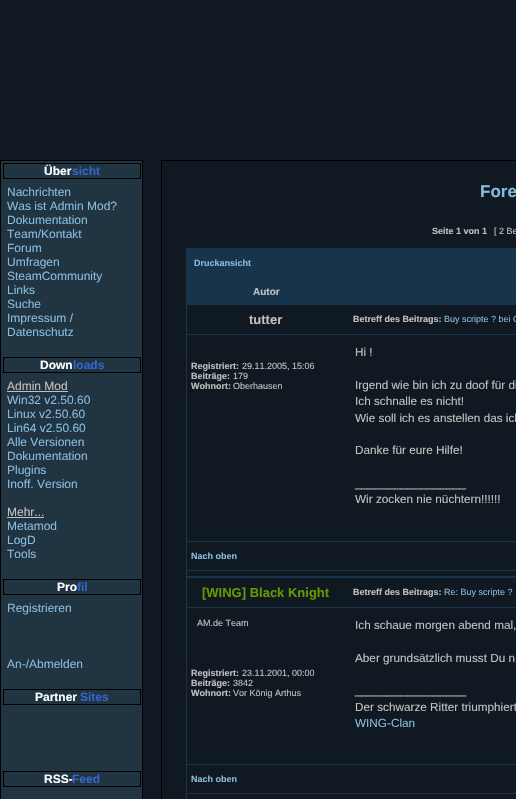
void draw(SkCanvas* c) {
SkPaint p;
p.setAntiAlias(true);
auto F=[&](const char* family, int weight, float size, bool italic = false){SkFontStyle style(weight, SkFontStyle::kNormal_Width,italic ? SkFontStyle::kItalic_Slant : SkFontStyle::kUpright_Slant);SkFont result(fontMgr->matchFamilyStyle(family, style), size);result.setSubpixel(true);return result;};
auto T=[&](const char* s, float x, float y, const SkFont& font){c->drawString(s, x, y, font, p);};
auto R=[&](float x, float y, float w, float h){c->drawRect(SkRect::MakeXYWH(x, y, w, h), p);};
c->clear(0xff101821);
p.setColor(0xff213442);
c->drawRect(SkRect::MakeXYWH(.5,160.5,142,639),p);
p.setStroke(true);
p.setStrokeWidth(1);
p.setColor(0xff000000);
c->drawRect(SkRect::MakeXYWH(.5,160.5,142,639),p);
c->drawRect(SkRect::MakeXYWH(3.5,163.5,137,15),p);
auto f1 = F("Liberation Sans",700,12);
p.setStroke(false);
p.setColor(0xffffffff);
T("Über",44,175,f1);
p.setColor(0xff3366cc);
T("sicht",72,175,f1);
auto f2 = F("Liberation Sans",400,12);
p.setColor(0xff88bbde);
T("Nachrichten",7,196,f2);
T("Was ist Admin Mod?",7,210,f2);
T("Dokumentation",7,224,f2);
T("Team/Kontakt",7,238,f2);
T("Forum",7,252,f2);
T("Umfragen",7,266,f2);
T("SteamCommunity",7,280,f2);
T("Links",7,294,f2);
T("Suche",7,308,f2);
T("Impressum /",7,322,f2);
T("Datenschutz",7,336,f2);
p.setStroke(true);
p.setColor(0xff000000);
c->drawRect(SkRect::MakeXYWH(3.5,357.5,137,15),p);
p.setStroke(false);
p.setColor(0xffffffff);
T("Down",40,369,f1);
p.setColor(0xff3366cc);
T("loads",73,369,f1);
p.setColor(0xffc0c0c0);
T("Admin Mod",7,390,f2);
R(7,391,61,1);
p.setColor(0xff88bbde);
T("Win32 v2.50.60",7,404,f2);
T("Linux v2.50.60",7,418,f2);
T("Lin64 v2.50.60",7,432,f2);
T("Alle Versionen",7,446,f2);
T("Dokumentation",7,460,f2);
T("Plugins",7,474,f2);
T("Inoff. Version",7,488,f2);
p.setColor(0xffc0c0c0);
T("Mehr...",7,516,f2);
R(7,517,37,1);
p.setColor(0xff88bbde);
T("Metamod",7,530,f2);
T("LogD",7,544,f2);
T("Tools",7,558,f2);
p.setStroke(true);
p.setColor(0xff000000);
c->drawRect(SkRect::MakeXYWH(3.5,579.5,137,15),p);
p.setStroke(false);
p.setColor(0xffffffff);
T("Pro",57,591,f1);
p.setColor(0xff3366cc);
T("fil",77,591,f1);
p.setColor(0xff88bbde);
T("Registrieren",7,612,f2);
T("An-/Abmelden",7,668,f2);
p.setStroke(true);
p.setColor(0xff000000);
c->drawRect(SkRect::MakeXYWH(3.5,689.5,137,15),p);
p.setStroke(false);
p.setColor(0xffffffff);
T("Partner",35,701,f1);
p.setColor(0xff3366cc);
T("Sites",80,701,f1);
p.setStroke(true);
p.setColor(0xff000000);
c->drawRect(SkRect::MakeXYWH(3.5,771.5,137,15),p);
p.setStroke(false);
p.setColor(0xffffffff);
T("RSS-",44,783,f1);
p.setColor(0xff3366cc);
T("Feed",72,783,f1);
p.setStroke(true);
p.setColor(0xff000000);
c->drawRect(SkRect::MakeXYWH(161.5,160.5,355,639),p);
auto f3 = F("Liberation Sans",700,17);
p.setStroke(false);
p.setColor(0xff88bbde);
T("Fore",480,197,f3);
auto f4 = F("Liberation Sans",700,9);
p.setColor(0xffc0c0c0);
T("Seite 1 von 1",432,234,f4);
auto f5 = F("Liberation Sans",400,9);
T("[ 2 Be",494,234,f5);
p.setColor(0xff18344a);
R(186,248,330,551);
p.setColor(0xff88bbde);
T("Druckansicht",194,266,f4);
auto f6 = F("Liberation Sans",700,10);
p.setColor(0xffc0c0c0);
T("Autor",253,295,f6);
p.setColor(0xff101821);
R(187,305,329,29);
auto f7 = F("Liberation Sans",700,13);
p.setColor(0xffc0c0c0);
T("tutter",249,324,f7);
T("Betreff des Beitrags:",353,322,f4);
p.setColor(0xff88bbde);
T("Buy scripte ? bei C",444,322,f5);
p.setColor(0xff101821);
R(187,335,329,206);
p.setColor(0xffc0c0c0);
T("Registriert:",191,369,f4);
T("29.11.2005, 15:06",242,369,f5);
T("Beiträge:",191,379,f4);
T("179",233,379,f5);
T("Wohnort:",191,389,f4);
T("Oberhausen",233,389,f5);
auto f8 = F("Liberation Sans",400,11.75);
T("Hi !",355,356,f8);
T("Irgend wie bin ich zu doof für di",355,389,f8);
T("Ich schnalle es nicht!",355,405,f8);
T("Wie soll ich es anstellen das ich",355,422,f8);
T("Danke für eure Hilfe!",355,454,f8);
T("_________________",355,487,f8);
T("Wir zocken nie nüchtern!!!!!!",355,503,f8);
p.setColor(0xff101821);
R(187,542,329,28);
p.setColor(0xff88bbde);
T("Nach oben",191,559,f4);
p.setColor(0xff101821);
R(187,571,329,5);
R(187,578,329,29);
p.setColor(0xff669900);
T("[WING] Black Knight",202,597,f7);
p.setColor(0xffc0c0c0);
T("Betreff des Beitrags:",353,595,f4);
p.setColor(0xff88bbde);
T("Re: Buy scripte ?",444,595,f5);
p.setColor(0xff101821);
R(187,608,329,156);
p.setColor(0xffc0c0c0);
T("AM.de Team",197,626,f5);
T("Registriert:",191,676,f4);
T("23.11.2001, 00:00",242,676,f5);
T("Beiträge:",191,686,f4);
T("3842",233,686,f5);
T("Wohnort:",191,696,f4);
T("Vor König Arthus",233,696,f5);
T("Ich schaue morgen abend mal,",355,629,f8);
T("Aber grundsätzlich musst Du n",355,662,f8);
T("_________________",355,694,f8);
T("Der schwarze Ritter triumphiert",355,711,f8);
p.setColor(0xff88bbde);
T("WING-Clan",355,727,f8);
p.setColor(0xff101821);
R(187,765,329,28);
p.setColor(0xff88bbde);
T("Nach oben",191,782,f4);
p.setColor(0xff101821);
R(187,794,329,5);
}
